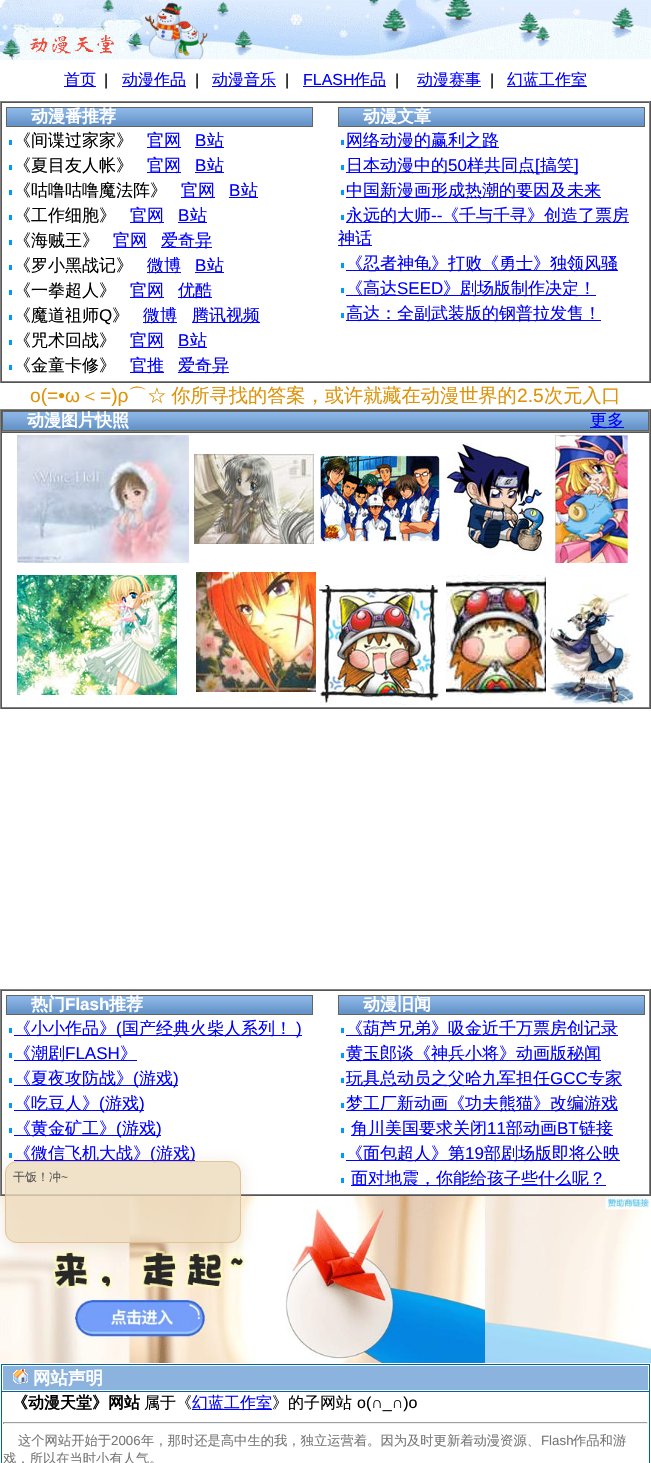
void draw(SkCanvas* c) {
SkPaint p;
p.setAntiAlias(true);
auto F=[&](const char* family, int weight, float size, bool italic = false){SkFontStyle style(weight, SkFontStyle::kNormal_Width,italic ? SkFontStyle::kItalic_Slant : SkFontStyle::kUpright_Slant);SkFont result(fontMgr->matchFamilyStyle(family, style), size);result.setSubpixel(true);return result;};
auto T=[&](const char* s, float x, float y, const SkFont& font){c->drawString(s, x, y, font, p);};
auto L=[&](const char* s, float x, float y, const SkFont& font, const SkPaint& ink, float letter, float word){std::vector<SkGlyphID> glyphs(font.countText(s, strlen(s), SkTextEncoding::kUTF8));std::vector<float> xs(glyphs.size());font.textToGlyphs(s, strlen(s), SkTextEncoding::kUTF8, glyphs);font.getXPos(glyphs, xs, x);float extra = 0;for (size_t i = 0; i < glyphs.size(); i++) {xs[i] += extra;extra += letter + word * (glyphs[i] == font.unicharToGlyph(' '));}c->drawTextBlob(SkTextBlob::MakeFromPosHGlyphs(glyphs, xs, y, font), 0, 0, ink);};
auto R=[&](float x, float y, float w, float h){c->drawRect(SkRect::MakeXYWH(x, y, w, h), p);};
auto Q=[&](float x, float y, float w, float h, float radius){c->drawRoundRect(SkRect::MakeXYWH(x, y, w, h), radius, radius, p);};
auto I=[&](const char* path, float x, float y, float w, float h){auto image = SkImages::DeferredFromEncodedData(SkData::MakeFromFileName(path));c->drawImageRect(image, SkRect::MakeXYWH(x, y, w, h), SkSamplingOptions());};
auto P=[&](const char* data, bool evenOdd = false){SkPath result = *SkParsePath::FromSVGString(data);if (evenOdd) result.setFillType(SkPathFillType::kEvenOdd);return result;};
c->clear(0xffffffff);
I("1.png",0,0,651,60);
p.setColor(0xff0000ff);
R(64,86,32,1);
auto f1 = F("WenQuanYi Zen Hei",500,16);
T("首页",64,85,f1);
auto f2 = F("Liberation Sans",400,16);
p.setColor(0xff000000);
T("|",104,85,f2);
p.setColor(0xff0000ff);
R(122,86,64,1);
T("动漫作品",122,85,f1);
p.setColor(0xff000000);
T("|",195,85,f2);
p.setColor(0xff0000ff);
R(212,86,64,1);
T("动漫音乐",212,85,f1);
p.setColor(0xff000000);
T("|",285,85,f2);
p.setColor(0xff0000ff);
T("FLASH",303,85,f2);
R(303,86,83,1);
T("作品",354,85,f1);
p.setColor(0xff000000);
T("|",395,85,f2);
p.setColor(0xff0000ff);
R(417,86,64,1);
T("动漫赛事",417,85,f1);
p.setColor(0xff000000);
T("|",490,85,f2);
p.setColor(0xff0000ff);
R(507,86,80,1);
T("幻蓝工作室",507,85,f1);
p.setColor(0xff808080);
R(0,101,651,1);
p.setColor(0xff555555);
R(650,101,1,282);
R(0,382,651,1);
p.setColor(0xff808080);
R(0,101,1,282);
p.setColor(0xff555555);
R(1,102,649,1);
p.setColor(0xff808080);
R(649,102,1,280);
R(1,381,649,1);
p.setColor(0xff555555);
R(1,102,1,280);
I("2.png",6,107,20,20);
I("3.png",26,107,267,20);
auto f3 = F("WenQuanYi Zen Hei",700,17);
p.setColor(0xffffffff);
T("动漫番推荐",31,122,f3);
I("4.png",293,107,20,20);
p.setColor(0xff0099ff);
R(9,140,3,5);
auto f4 = F("WenQuanYi Zen Hei",500,17);
p.setColor(0xff000000);
T("《间谍过家家》",14,146,f4);
p.setColor(0xff0000ff);
R(147,147,34,1);
T("官网",147,146,f4);
auto f5 = F("Liberation Sans",400,17);
T("B",195,146,f5);
R(195,147,29,1);
T("站",207,146,f4);
p.setColor(0xff0099ff);
R(9,165,3,5);
p.setColor(0xff000000);
T("《夏目友人帐》",14,171,f4);
p.setColor(0xff0000ff);
R(147,172,34,1);
T("官网",147,171,f4);
T("B",195,171,f5);
R(195,172,29,1);
T("站",207,171,f4);
p.setColor(0xff0099ff);
R(9,190,3,5);
p.setColor(0xff000000);
T("《咕噜咕噜魔法阵》",14,196,f4);
p.setColor(0xff0000ff);
R(181,197,34,1);
T("官网",181,196,f4);
T("B",229,196,f5);
R(229,197,29,1);
T("站",241,196,f4);
p.setColor(0xff0099ff);
R(9,215,3,5);
p.setColor(0xff000000);
T("《工作细胞》",14,221,f4);
p.setColor(0xff0000ff);
R(130,222,34,1);
T("官网",130,221,f4);
T("B",178,221,f5);
R(178,222,29,1);
T("站",190,221,f4);
p.setColor(0xff0099ff);
R(9,240,3,5);
p.setColor(0xff000000);
T("《海贼王》",14,246,f4);
p.setColor(0xff0000ff);
R(113,247,34,1);
T("官网",113,246,f4);
R(161,247,51,1);
T("爱奇异",161,246,f4);
p.setColor(0xff0099ff);
R(9,265,3,5);
p.setColor(0xff000000);
T("《罗小黑战记》",14,271,f4);
p.setColor(0xff0000ff);
R(147,272,34,1);
T("微博",147,271,f4);
T("B",195,271,f5);
R(195,272,29,1);
T("站",207,271,f4);
p.setColor(0xff0099ff);
R(9,290,3,5);
p.setColor(0xff000000);
T("《一拳超人》",14,296,f4);
p.setColor(0xff0000ff);
R(130,297,34,1);
T("官网",130,296,f4);
R(178,297,34,1);
T("优酷",178,296,f4);
p.setColor(0xff0099ff);
R(9,315,3,5);
p.setColor(0xff000000);
T("《魔道祖师",14,321,f4);
T("Q",99,321,f5);
T("》",112,321,f4);
p.setColor(0xff0000ff);
R(143,322,34,1);
T("微博",143,321,f4);
R(192,322,68,1);
T("腾讯视频",192,321,f4);
p.setColor(0xff0099ff);
R(9,340,3,5);
p.setColor(0xff000000);
T("《咒术回战》",14,346,f4);
p.setColor(0xff0000ff);
R(130,347,34,1);
T("官网",130,346,f4);
T("B",178,346,f5);
R(178,347,29,1);
T("站",190,346,f4);
p.setColor(0xff0099ff);
R(9,365,3,5);
p.setColor(0xff000000);
T("《金童卡修》",14,371,f4);
p.setColor(0xff0000ff);
R(130,372,34,1);
T("官推",130,371,f4);
R(178,372,51,1);
T("爱奇异",178,371,f4);
I("2.png",338,107,20,20);
I("3.png",358,107,267,20);
p.setColor(0xffffffff);
T("动漫文章",363,122,f3);
I("4.png",625,107,20,20);
p.setColor(0xff0099ff);
R(341,140,3,5);
p.setColor(0xff0000ff);
R(346,147,153,1);
T("网络动漫的赢利之路",346,146,f4);
p.setColor(0xff0099ff);
R(341,165,3,5);
p.setColor(0xff0000ff);
R(346,172,232,1);
T("日本动漫中的",346,171,f4);
T("50",448,171,f5);
T("样共同点",467,171,f4);
T("[",535,171,f5);
T("搞笑",540,171,f4);
T("]",574,171,f5);
p.setColor(0xff0099ff);
R(341,190,3,5);
p.setColor(0xff0000ff);
R(346,197,255,1);
T("中国新漫画形成热潮的要因及未来",346,196,f4);
p.setColor(0xff0099ff);
R(341,215,3,5);
p.setColor(0xff0000ff);
R(346,222,283,1);
T("永远的大师",346,221,f4);
T("--",431,221,f5);
T("《千与千寻》创造了票房",442,221,f4);
R(338,245,34,1);
T("神话",338,244,f4);
p.setColor(0xff0099ff);
R(341,263,3,5);
p.setColor(0xff0000ff);
R(346,270,272,1);
T("《忍者神龟》打败《勇士》独领风骚",346,269,f4);
p.setColor(0xff0099ff);
R(341,288,3,5);
p.setColor(0xff0000ff);
R(346,295,250,1);
T("《高达",346,294,f4);
T("SEED",397,294,f5);
T("》剧场版制作决定！",443,294,f4);
p.setColor(0xff0099ff);
R(341,313,3,5);
p.setColor(0xff0000ff);
R(346,320,255,1);
T("高达：全副武装版的钢普拉发售！",346,319,f4);
auto f6 = F("Liberation Sans",400,19.2);
p.setColor(0xffdd930a);
T("ο(=•ω",30,402,f6);
auto f7 = F("WenQuanYi Zen Hei",500,19.2);
T("＜",80,402,f7);
T("=)ρ",100,402,f6);
L("⌒☆ 你所寻找的答案，或许就藏在动漫世界的",128,402,f7,p,0,-1);
T("2.5",517,402,f6);
T("次元入口",544,402,f7);
p.setColor(0xff808080);
R(0,409,651,1);
p.setColor(0xff555555);
R(650,409,1,300);
R(0,708,651,1);
p.setColor(0xff808080);
R(0,409,1,300);
p.setColor(0xff555555);
R(1,410,649,1);
p.setColor(0xff808080);
R(649,410,1,22);
R(1,431,649,1);
p.setColor(0xff555555);
R(1,410,1,22);
I("2.png",2,411,20,20);
I("5.png",22,411,607,20);
p.setColor(0xffffffff);
T("动漫图片快照",27,426,f3);
p.setColor(0xff0000ff);
R(590,427,34,1);
T("更多",590,426,f4);
I("4.png",629,411,20,20);
p.setColor(0xff555555);
R(1,432,649,1);
p.setColor(0xff808080);
R(649,432,1,276);
R(1,707,649,1);
p.setColor(0xff555555);
R(1,432,1,276);
I("6.png",17,435,172,128);
I("7.png",194,454,120,90);
I("8.png",320,455,120,87);
I("9.png",445,443,102,112);
I("10.png",555,435,73,128);
I("11.png",17,575,160,120);
I("12.png",196,572,120,120);
I("13.png",319,585,120,120);
I("14.png",446,575,100,120);
I("15.png",549,585,85,120);
p.setColor(0xff808080);
R(0,989,651,1);
p.setColor(0xff555555);
R(650,989,1,207);
R(0,1195,651,1);
p.setColor(0xff808080);
R(0,989,1,207);
p.setColor(0xff555555);
R(1,990,649,1);
p.setColor(0xff808080);
R(649,990,1,205);
R(1,1194,649,1);
p.setColor(0xff555555);
R(1,990,1,205);
I("2.png",6,995,20,20);
I("3.png",26,995,267,20);
p.setColor(0xffffffff);
T("热门",31,1010,f3);
auto f8 = F("Liberation Sans",700,17);
T("Flash",65,1010,f8);
T("推荐",109,1010,f3);
I("4.png",293,995,20,20);
p.setColor(0xff0099ff);
R(9,1028,3,5);
p.setColor(0xff0000ff);
R(14,1035,288,1);
T("《小小作品》",14,1034,f4);
T("(",116,1034,f5);
T("国产经典火柴人系列！",122,1034,f4);
T(")",296,1034,f5);
p.setColor(0xff0099ff);
R(9,1053,3,5);
p.setColor(0xff0000ff);
R(14,1060,123,1);
T("《潮剧",14,1059,f4);
T("FLASH",65,1059,f5);
T("》",120,1059,f4);
p.setColor(0xff0099ff);
R(9,1078,3,5);
p.setColor(0xff0000ff);
R(14,1085,164,1);
T("《夏夜攻防战》",14,1084,f4);
T("(",133,1084,f5);
T("游戏",139,1084,f4);
T(")",173,1084,f5);
p.setColor(0xff0099ff);
R(9,1103,3,5);
p.setColor(0xff0000ff);
R(14,1110,130,1);
T("《吃豆人》",14,1109,f4);
T("(",99,1109,f5);
T("游戏",105,1109,f4);
T(")",139,1109,f5);
p.setColor(0xff0099ff);
R(9,1128,3,5);
p.setColor(0xff0000ff);
R(14,1135,147,1);
T("《黄金矿工》",14,1134,f4);
T("(",116,1134,f5);
T("游戏",122,1134,f4);
T(")",156,1134,f5);
p.setColor(0xff0099ff);
R(9,1153,3,5);
p.setColor(0xff0000ff);
R(14,1160,181,1);
T("《微信飞机大战》",14,1159,f4);
T("(",150,1159,f5);
T("游戏",156,1159,f4);
T(")",190,1159,f5);
I("2.png",338,995,20,20);
I("3.png",358,995,267,20);
p.setColor(0xffffffff);
T("动漫旧闻",363,1010,f3);
I("4.png",625,995,20,20);
p.setColor(0xff0099ff);
R(341,1028,3,5);
p.setColor(0xff0000ff);
R(346,1035,272,1);
T("《葫芦兄弟》吸金近千万票房创记录",346,1034,f4);
p.setColor(0xff0099ff);
R(341,1053,3,5);
p.setColor(0xff0000ff);
R(346,1060,255,1);
T("黄玉郎谈《神兵小将》动画版秘闻",346,1059,f4);
p.setColor(0xff0099ff);
R(341,1078,3,5);
p.setColor(0xff0000ff);
R(346,1085,276,1);
T("玩具总动员之父哈九军担任",346,1084,f4);
T("GCC",550,1084,f5);
T("专家",588,1084,f4);
p.setColor(0xff0099ff);
R(341,1103,3,5);
p.setColor(0xff0000ff);
R(346,1110,272,1);
T("梦工厂新动画《功夫熊猫》改编游戏",346,1109,f4);
p.setColor(0xff0099ff);
R(341,1128,3,5);
p.setColor(0xff0000ff);
R(351,1135,262,1);
T("角川美国要求关闭",351,1134,f4);
T("11",487,1134,f5);
T("部动画",506,1134,f4);
T("BT",557,1134,f5);
T("链接",579,1134,f4);
p.setColor(0xff0099ff);
R(341,1153,3,5);
p.setColor(0xff0000ff);
R(346,1160,274,1);
T("《面包超人》第",346,1159,f4);
T("19",465,1159,f5);
T("部剧场版即将公映",484,1159,f4);
p.setColor(0xff0099ff);
R(341,1178,3,5);
p.setColor(0xff0000ff);
R(351,1185,255,1);
T("面对地震，你能给孩子些什么呢？",351,1184,f4);
I("16.png",0,1196,651,167);
p.setColor(0xff00659c);
R(1,1364,649,99);
p.setColor(0xff8cb2de);
c->drawRect(SkRect::MakeXYWH(2.5,1365.5,646,25),p);
p.setStroke(true);
p.setStrokeWidth(1);
p.setColor(0xffffffff);
c->drawRect(SkRect::MakeXYWH(2.5,1365.5,646,25),p);
I("17.png",13,1369,15,15);
auto f9 = F("WenQuanYi Zen Hei",700,17.5);
p.setStroke(false);
T("网站声明",33,1384,f9);
R(2,1392,647,71);
auto f10 = F("WenQuanYi Zen Hei",700,16);
p.setColor(0xff000000);
T("《动漫天堂》网站",12,1408,f10);
T("属于《",144,1408,f1);
p.setColor(0xff0000ff);
R(192,1409,80,1);
T("幻蓝工作室",192,1408,f1);
p.setColor(0xff000000);
T("》的子网站",272,1408,f1);
T("o(∩_∩)o",357,1408,f2);
p.setColor(0xff9f9f9f);
R(3,1422,645,1);
p.setColor(0xffeeeeee);
R(647,1422,1,2);
R(3,1423,645,1);
p.setColor(0xff9f9f9f);
R(3,1422,1,2);
auto f11 = F("WenQuanYi Zen Hei",500,13.3);
p.setColor(0xff777777);
T("这个网站开始于",18,1445,f11);
auto f12 = F("Liberation Sans",400,13.3);
T("2006",111,1445,f12);
T("年，那时还是高中生的我，独立运营着。因为及时更新着动漫资源、",141,1445,f11);
T("Flash",541,1445,f12);
T("作品和游",573,1445,f11);
T("戏，所以在当时小有人气。",3,1463,f11);
c->save();
c->clipPath(P("M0 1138h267v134h-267zm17 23h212c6.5 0 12 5.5 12 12v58c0 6.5-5.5 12-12 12h-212c-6.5 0-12-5.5-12-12v-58c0-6.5 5.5-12 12-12z",true),true);
p.setColor(0x33bf9e76);
p.setMaskFilter(SkMaskFilter::MakeBlur(kNormal_SkBlurStyle, 7.5));
c->drawRoundRect(SkRect::MakeXYWH(3,1162,240,86),14,14,p);
p.setMaskFilter(nullptr);
c->restore();
p.setColor(0xccecd9bc);
Q(5,1161,236,82,12);
p.setStroke(true);
p.setColor(0xcce0ba8c);
c->drawRoundRect(SkRect::MakeXYWH(5.5,1161.5,235,81),11.5,11.5,p);
auto f13 = F("WenQuanYi Zen Hei",500,12);
p.setStroke(false);
p.setColor(0xff565656);
T("干饭！冲",13,1181,f13);
auto f14 = F("Liberation Sans",400,12);
T("~",61,1181,f14);
}
